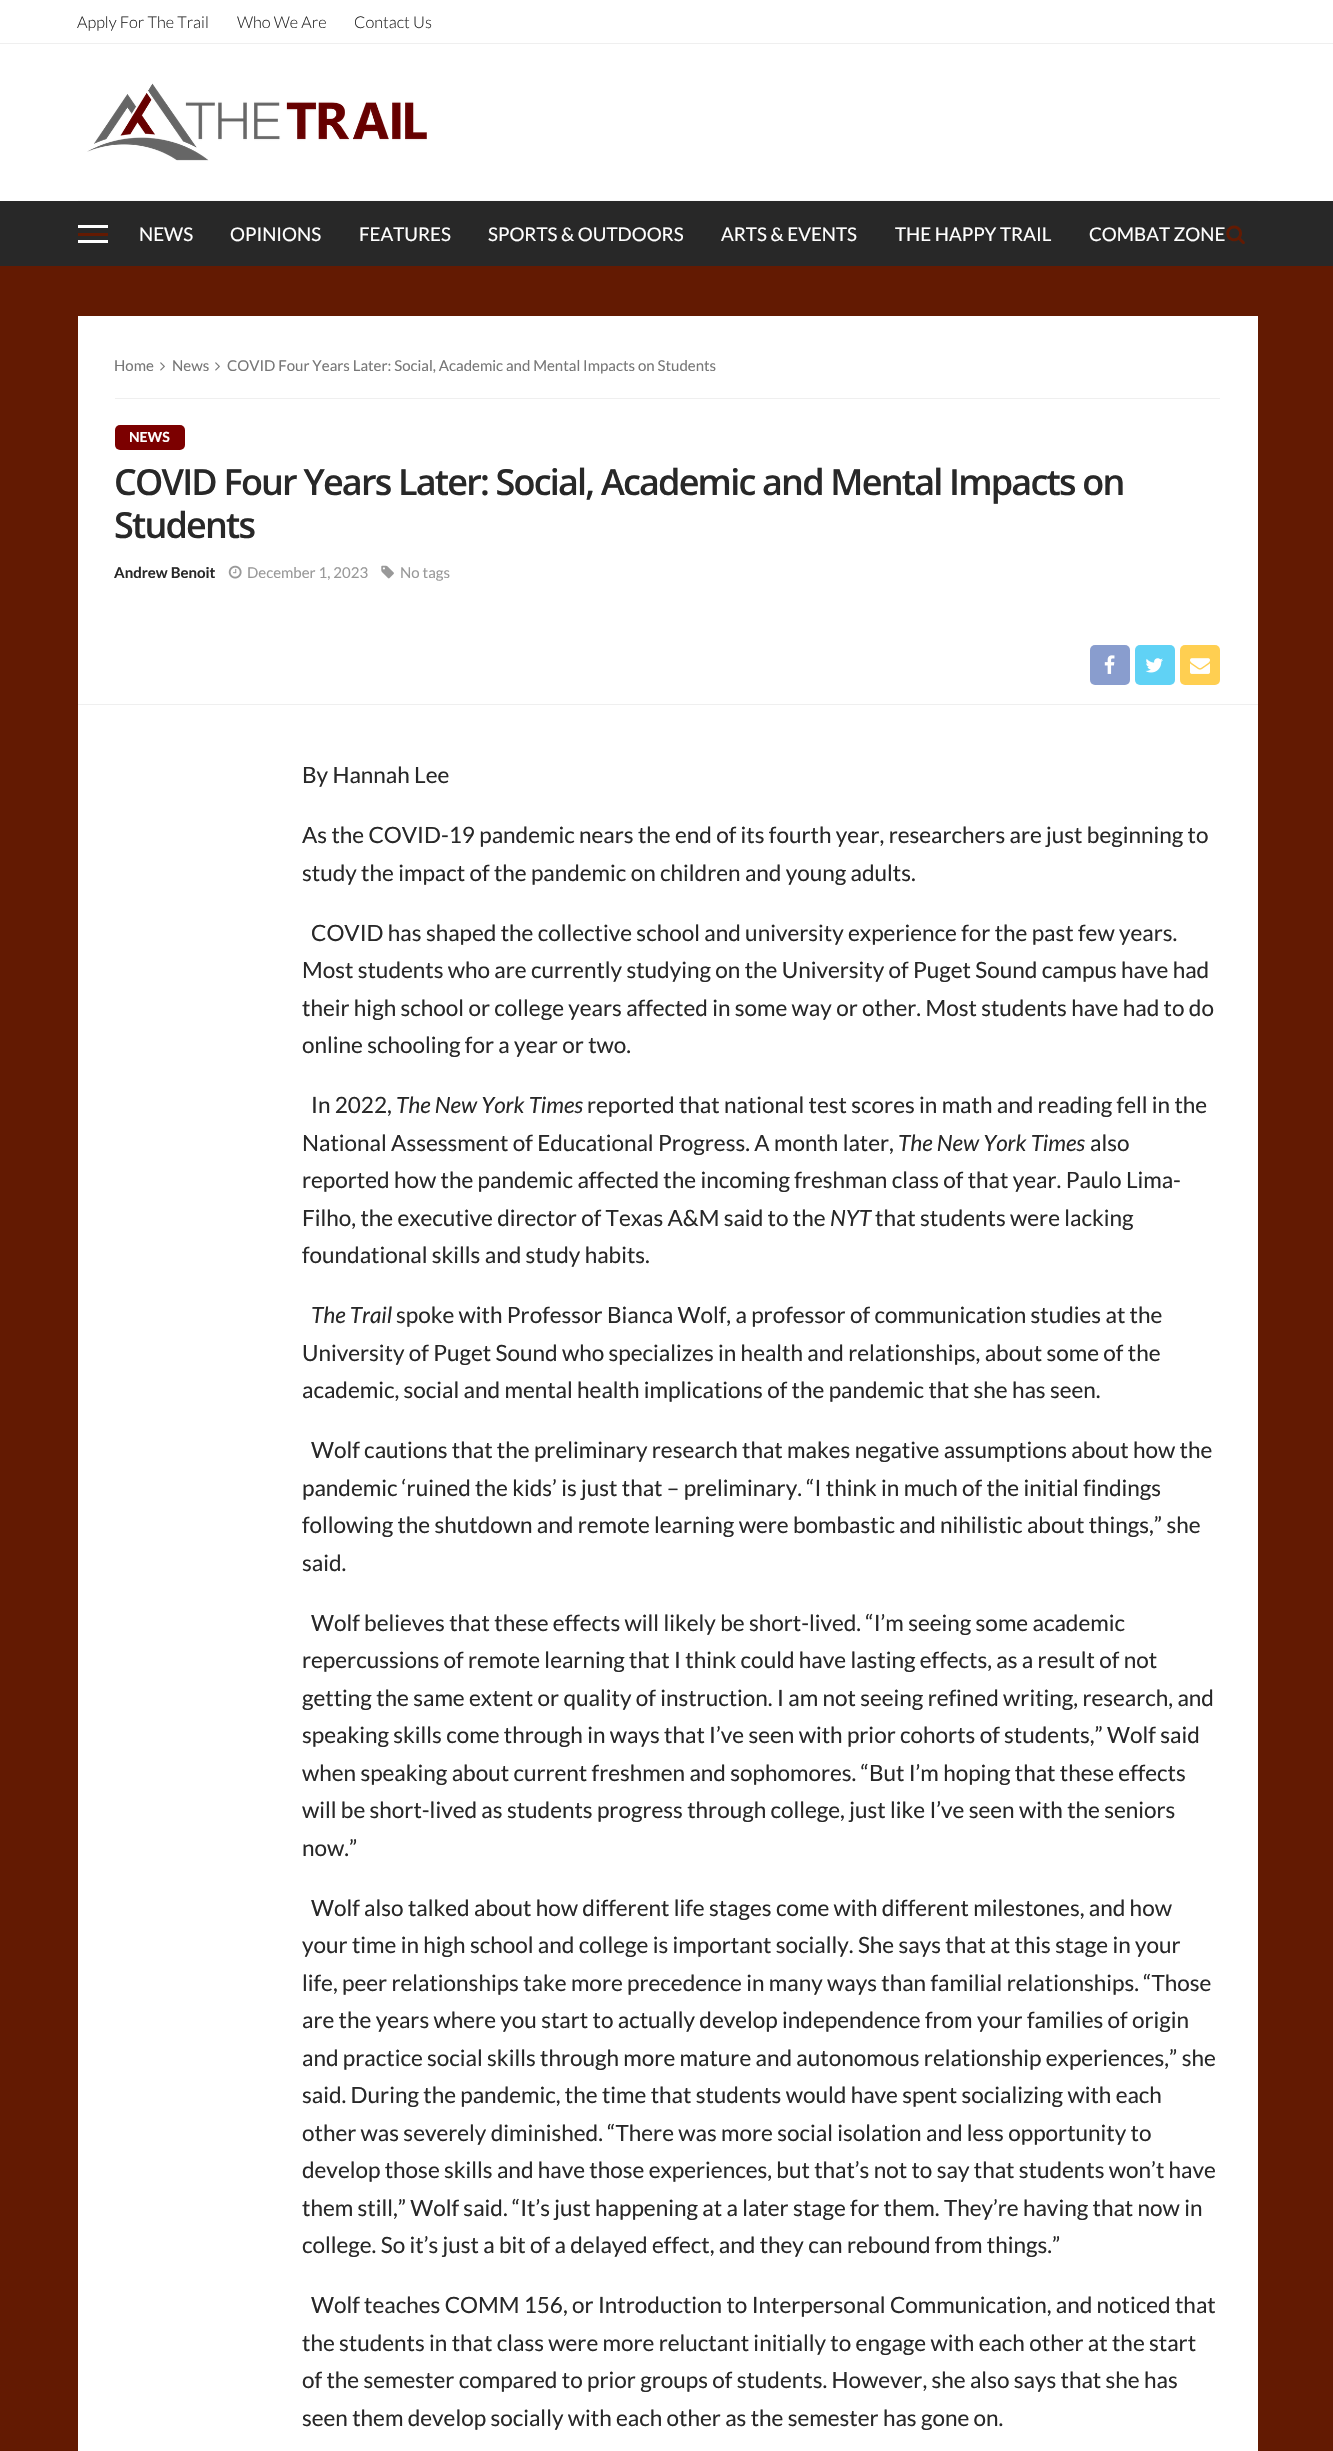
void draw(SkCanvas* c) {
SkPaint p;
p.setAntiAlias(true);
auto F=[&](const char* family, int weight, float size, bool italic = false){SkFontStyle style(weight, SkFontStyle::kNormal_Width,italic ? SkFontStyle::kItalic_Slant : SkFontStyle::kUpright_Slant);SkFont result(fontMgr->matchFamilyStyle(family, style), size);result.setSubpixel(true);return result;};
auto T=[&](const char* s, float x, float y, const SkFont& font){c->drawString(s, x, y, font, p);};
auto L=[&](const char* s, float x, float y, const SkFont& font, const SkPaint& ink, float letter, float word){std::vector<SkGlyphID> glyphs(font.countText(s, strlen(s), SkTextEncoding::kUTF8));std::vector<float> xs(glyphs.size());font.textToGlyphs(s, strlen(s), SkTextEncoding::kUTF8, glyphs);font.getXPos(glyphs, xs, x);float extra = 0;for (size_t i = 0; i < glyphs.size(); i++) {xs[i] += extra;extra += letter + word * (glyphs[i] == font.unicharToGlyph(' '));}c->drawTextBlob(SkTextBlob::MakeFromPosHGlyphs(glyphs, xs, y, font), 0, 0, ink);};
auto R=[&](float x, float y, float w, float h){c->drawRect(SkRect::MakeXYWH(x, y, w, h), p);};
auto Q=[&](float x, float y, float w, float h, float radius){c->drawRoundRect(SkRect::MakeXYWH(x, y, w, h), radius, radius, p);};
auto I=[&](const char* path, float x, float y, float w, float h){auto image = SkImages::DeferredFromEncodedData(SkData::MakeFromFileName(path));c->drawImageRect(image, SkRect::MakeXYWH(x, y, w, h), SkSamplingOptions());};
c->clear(0xff631a02);
p.setColor(0xffffffff);
R(0,0,1333,43);
p.setColor(0xffefefef);
R(0,43,1333,1);
auto f1 = F("Lato",300,16.25);
p.setColor(0xff282828);
T("Apply For The Trail",77,28,f1);
T("Who We Are",237,28,f1);
T("Contact Us",354,28,f1);
p.setColor(0xffffffff);
R(0,44,1333,157);
p.setColor(0xfffafafa);
R(78,200,1180,1);
I("1.png",87,83,340,78);
p.setColor(0xff282828);
R(0,201,1333,65);
p.setColor(0xff631a02);
R(78,233,30,3);
p.setColor(0xffffffff);
R(78,225,30,3);
R(78,240,30,3);
auto f2 = F("Lato",400,18.75);
T("NEWS",139,241,f2);
T("OPINIONS",230,241,f2);
T("FEATURES",359,241,f2);
T("SPORTS & OUTDOORS",488,241,f2);
T("ARTS & EVENTS",721,241,f2);
T("THE HAPPY TRAIL",895,241,f2);
T("COMBAT ZONE",1089,241,f2);
I("2.png",1226,225,19,19);
R(78,316,1180,2135);
p.setColor(0xffefefef);
R(115,398,1105,1);
auto f3 = F("Lato",400,15);
p.setColor(0xff777777);
T("Home",114,371,f3);
I("3.png",160,362,5,9);
T("News",172,371,f3);
I("3.png",215,362,5,9);
T("COVID Four Years Later: Social, Academic and Mental Impacts on Students",227,371,f3);
p.setColor(0xff7c0000);
Q(115,425,70,25,5);
auto f4 = F("Lato",700,14);
p.setColor(0xffffffff);
T("NEWS",129,442,f4);
auto f5 = F("Open Sans",600,36);
p.setColor(0xff282828);
L("COVID Four Years Later: Social, Academic and Mental Impacts on",114,495,f5,p,-1.8,0);
L("Students",114,538,f5,p,-1.8,0);
auto f6 = F("Lato",700,15);
T("Andrew Benoit",114,578,f6);
I("4.png",228,565,14,14);
p.setColor(0xff999999);
T("December 1, 2023",247,578,f3);
I("5.png",381,565,13,14);
T("No tags",400,578,f3);
p.setColor(0xffefefef);
R(78,704,1180,1);
p.setColor(0xff899dce);
Q(1090,645,40,40,5);
I("6.png",1104,655,11,19);
p.setColor(0xff60d2f5);
Q(1135,645,40,40,5);
I("7.png",1145,658,18,15);
p.setColor(0xffffcf51);
Q(1180,645,40,40,5);
I("8.png",1190,658,20,16);
auto f7 = F("Lato",400,22.5);
p.setColor(0xff282828);
T("By Hannah Lee",302,783,f7);
T("As the COVID-19 pandemic nears the end of its fourth year, researchers are just beginning to",302,843,f7);
T("study the impact of the pandemic on children and young adults.",302,881,f7);
T("COVID has shaped the collective school and university experience for the past few years.",311,941,f7);
T("Most students who are currently studying on the University of Puget Sound campus have had",302,978,f7);
T("their high school or college years affected in some way or other. Most students have had to do",302,1016,f7);
T("online schooling for a year or two.",302,1053,f7);
T("In 2022,",311,1113,f7);
auto f8 = F("Lato",400,22.5,true);
T("The New York Times",396,1113,f8);
T("reported that national test scores in math and reading fell in the",587,1113,f7);
T("National Assessment of Educational Progress. A month later,",302,1151,f7);
T("The New York Times",898,1151,f8);
T("also",1090,1151,f7);
T("reported how the pandemic affected the incoming freshman class of that year. Paulo Lima-",302,1188,f7);
T("Filho, the executive director of Texas A&M said to the",302,1226,f7);
T("NYT",830,1226,f8);
T("that students were lacking",875,1226,f7);
T("foundational skills and study habits.",302,1263,f7);
T("The Trail",311,1323,f8);
T("spoke with Professor Bianca Wolf, a professor of communication studies at the",396,1323,f7);
T("University of Puget Sound who specializes in health and relationships, about some of the",302,1361,f7);
T("academic, social and mental health implications of the pandemic that she has seen.",302,1398,f7);
T("Wolf cautions that the preliminary research that makes negative assumptions about how the",311,1458,f7);
T("pandemic ‘ruined the kids’ is just that – preliminary. “I think in much of the initial findings",302,1496,f7);
T("following the shutdown and remote learning were bombastic and nihilistic about things,” she",302,1533,f7);
T("said.",302,1571,f7);
T("Wolf believes that these effects will likely be short-lived. “I’m seeing some academic",311,1631,f7);
T("repercussions of remote learning that I think could have lasting effects, as a result of not",302,1668,f7);
T("getting the same extent or quality of instruction. I am not seeing refined writing, research, and",302,1706,f7);
T("speaking skills come through in ways that I’ve seen with prior cohorts of students,” Wolf said",302,1743,f7);
T("when speaking about current freshmen and sophomores. “But I’m hoping that these effects",302,1781,f7);
T("will be short-lived as students progress through college, just like I’ve seen with the seniors",302,1818,f7);
T("now.”",302,1856,f7);
T("Wolf also talked about how different life stages come with different milestones, and how",311,1916,f7);
T("your time in high school and college is important socially. She says that at this stage in your",302,1953,f7);
T("life, peer relationships take more precedence in many ways than familial relationships. “Those",302,1991,f7);
T("are the years where you start to actually develop independence from your families of origin",302,2028,f7);
T("and practice social skills through more mature and autonomous relationship experiences,” she",302,2066,f7);
T("said. During the pandemic, the time that students would have spent socializing with each",302,2103,f7);
T("other was severely diminished. “There was more social isolation and less opportunity to",302,2141,f7);
T("develop those skills and have those experiences, but that’s not to say that students won’t have",302,2178,f7);
T("them still,” Wolf said. “It’s just happening at a later stage for them. They’re having that now in",302,2216,f7);
T("college. So it’s just a bit of a delayed effect, and they can rebound from things.”",302,2253,f7);
T("Wolf teaches COMM 156, or Introduction to Interpersonal Communication, and noticed that",311,2313,f7);
T("the students in that class were more reluctant initially to engage with each other at the start",302,2351,f7);
T("of the semester compared to prior groups of students. However, she also says that she has",302,2388,f7);
T("seen them develop socially with each other as the semester has gone on.",302,2426,f7);
}
